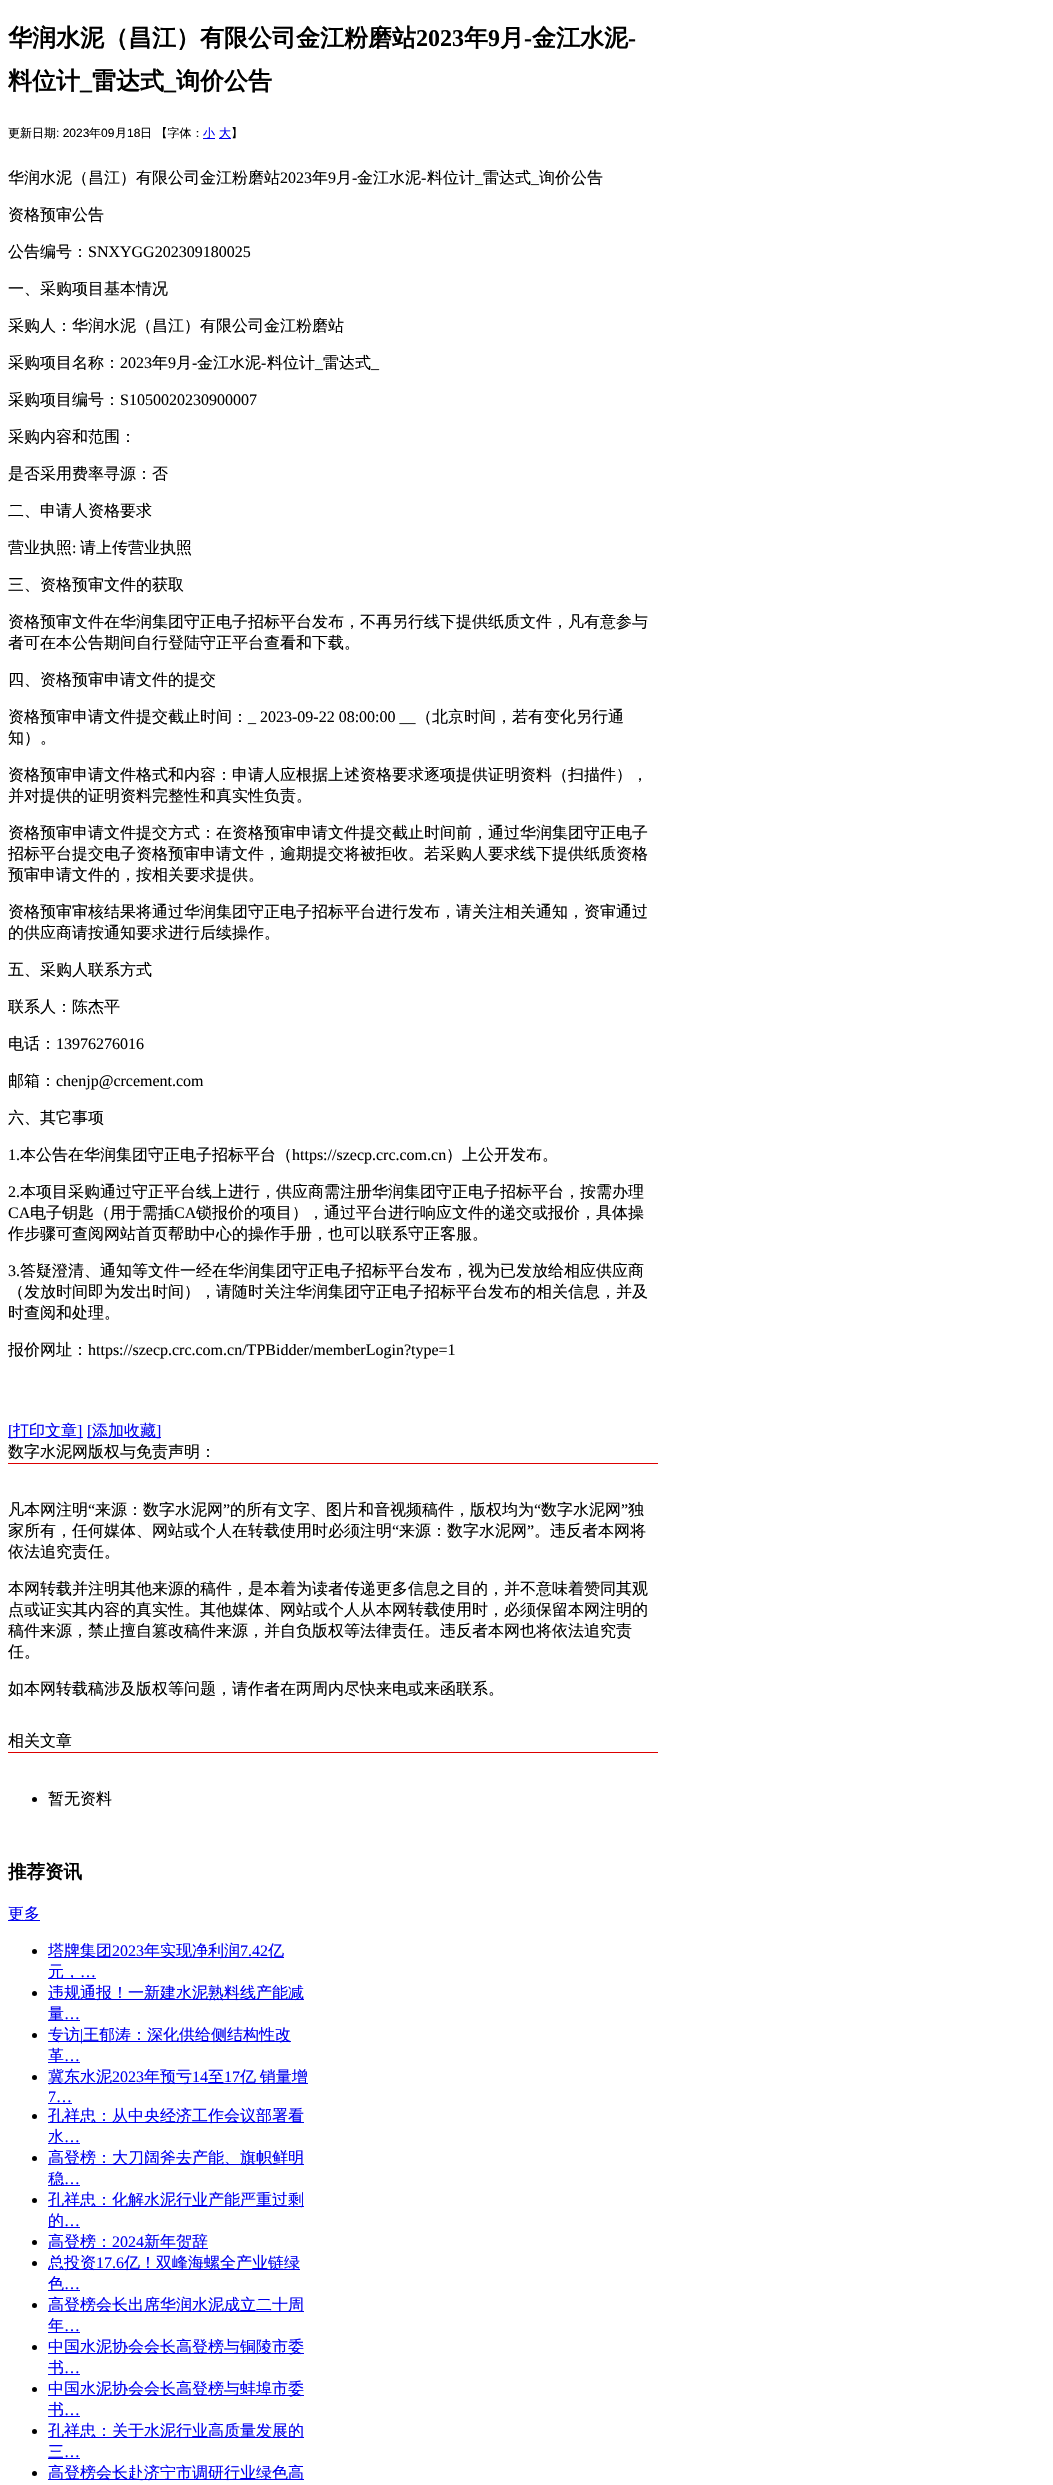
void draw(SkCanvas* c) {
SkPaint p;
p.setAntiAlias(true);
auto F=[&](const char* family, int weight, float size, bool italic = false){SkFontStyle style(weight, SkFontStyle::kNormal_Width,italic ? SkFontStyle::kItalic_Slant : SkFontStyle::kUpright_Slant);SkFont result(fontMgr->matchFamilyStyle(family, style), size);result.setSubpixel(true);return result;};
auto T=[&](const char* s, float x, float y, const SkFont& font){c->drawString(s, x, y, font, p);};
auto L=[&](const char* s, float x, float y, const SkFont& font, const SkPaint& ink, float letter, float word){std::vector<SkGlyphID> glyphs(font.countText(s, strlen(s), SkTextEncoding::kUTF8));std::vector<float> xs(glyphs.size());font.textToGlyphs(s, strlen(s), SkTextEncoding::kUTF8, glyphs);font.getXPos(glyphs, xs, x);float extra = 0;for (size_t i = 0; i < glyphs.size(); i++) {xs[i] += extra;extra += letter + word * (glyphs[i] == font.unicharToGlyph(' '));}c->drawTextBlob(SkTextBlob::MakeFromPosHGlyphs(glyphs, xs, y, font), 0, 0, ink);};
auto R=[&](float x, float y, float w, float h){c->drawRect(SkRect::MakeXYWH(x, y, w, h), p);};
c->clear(0xffffffff);
auto f1 = F("WenQuanYi Zen Hei",700,24);
p.setColor(0xff000000);
T("华润水泥（昌江）有限公司金江粉磨站",8,46,f1);
auto f2 = F("Liberation Serif",700,24);
T("2023",416,46,f2);
T("年",464,46,f1);
T("9",488,46,f2);
T("月",500,46,f1);
T("-",524,46,f2);
T("金江水泥",532,46,f1);
T("-",628,46,f2);
T("料位计",8,89,f1);
T("_",80,89,f2);
T("雷达式",92,89,f1);
T("_",164,89,f2);
T("询价公告",176,89,f1);
auto f3 = F("WenQuanYi Zen Hei",500,12);
T("更新日期",8,137,f3);
auto f4 = F("Liberation Sans",400,12);
T(": 2023",56,137,f4);
T("年",89,137,f3);
T("09",101,137,f4);
T("月",115,137,f3);
T("18",127,137,f4);
T("日 【字体：",140,137,f3);
p.setColor(0xff0000ee);
R(203,138,12,1);
T("小",203,137,f3);
R(219,138,12,1);
T("大",219,137,f3);
p.setColor(0xff000000);
T("】",231,137,f3);
auto f5 = F("WenQuanYi Zen Hei",500,16);
T("华润水泥（昌江）有限公司金江粉磨站",8,183,f5);
auto f6 = F("Liberation Serif",400,16);
T("2023",280,183,f6);
T("年",312,183,f5);
T("9",328,183,f6);
T("月",336,183,f5);
T("-",352,183,f6);
T("金江水泥",357,183,f5);
T("-",421,183,f6);
T("料位计",427,183,f5);
T("雷达式",483,183,f5);
T("_",531,183,f6);
T("询价公告",539,183,f5);
T("_",475,183,f6);
T("资格预审公告",8,220,f5);
T("公告编号：",8,257,f5);
T("SNXYGG202309180025",88,257,f6);
T("一、采购项目基本情况",8,294,f5);
T("采购人：华润水泥（昌江）有限公司金江粉磨站",8,331,f5);
T("采购项目名称：",8,368,f5);
T("2023",120,368,f6);
T("年",152,368,f5);
T("9",168,368,f6);
T("月",176,368,f5);
T("-",192,368,f6);
T("金江水泥",197,368,f5);
T("-",261,368,f6);
T("料位计",267,368,f5);
T("雷达式",323,368,f5);
T("_",315,368,f6);
T("_",371,368,f6);
T("采购项目编号：",8,405,f5);
T("S1050020230900007",120,405,f6);
T("采购内容和范围：",8,442,f5);
T("是否采用费率寻源：否",8,479,f5);
T("二、申请人资格要求",8,516,f5);
T("营业执照",8,553,f5);
T(":",72,553,f6);
T("请上传营业执照",80,553,f5);
T("三、资格预审文件的获取",8,590,f5);
T("资格预审文件在华润集团守正电子招标平台发布，不再另行线下提供纸质文件，凡有意参与",8,627,f5);
T("者可在本公告期间自行登陆守正平台查看和下载。",8,648,f5);
T("四、资格预审申请文件的提交",8,685,f5);
T("资格预审申请文件提交截止时间：",8,722,f5);
T("_ 2023-09-22 08:00:00 __",248,722,f6);
T("（北京时间，若有变化另行通",416,722,f5);
T("知）。",8,743,f5);
T("资格预审申请文件格式和内容：申请人应根据上述资格要求逐项提供证明资料（扫描件），",8,780,f5);
T("并对提供的证明资料完整性和真实性负责。",8,801,f5);
T("资格预审申请文件提交方式：在资格预审申请文件提交截止时间前，通过华润集团守正电子",8,838,f5);
T("招标平台提交电子资格预审申请文件，逾期提交将被拒收。若采购人要求线下提供纸质资格",8,859,f5);
T("预审申请文件的，按相关要求提供。",8,880,f5);
T("资格预审审核结果将通过华润集团守正电子招标平台进行发布，请关注相关通知，资审通过",8,917,f5);
T("的供应商请按通知要求进行后续操作。",8,938,f5);
T("五、采购人联系方式",8,975,f5);
T("联系人：陈杰平",8,1012,f5);
T("电话：",8,1049,f5);
T("13976276016",56,1049,f6);
T("邮箱：",8,1086,f5);
T("chenjp@crcement.com",56,1086,f6);
T("六、其它事项",8,1123,f5);
T("1.",8,1160,f6);
T("本公告在华润集团守正电子招标平台（",20,1160,f5);
T("https://szecp.crc.com.cn",292,1160,f6);
T("）上公开发布。",446,1160,f5);
T("2.",8,1197,f6);
T("本项目采购通过守正平台线上进行，供应商需注册华润集团守正电子招标平台，按需办理",20,1197,f5);
T("CA",8,1218,f6);
T("电子钥匙（用于需插",30,1218,f5);
T("CA",174,1218,f6);
T("锁报价的项目），通过平台进行响应文件的递交或报价，具体操",196,1218,f5);
T("作步骤可查阅网站首页帮助中心的操作手册，也可以联系守正客服。",8,1239,f5);
T("3.",8,1276,f6);
T("答疑澄清、通知等文件一经在华润集团守正电子招标平台发布，视为已发放给相应供应商",20,1276,f5);
T("（发放时间即为发出时间），请随时关注华润集团守正电子招标平台发布的相关信息，并及",8,1297,f5);
T("时查阅和处理。",8,1318,f5);
T("报价网址：",8,1355,f5);
T("https://szecp.crc.com.cn/TPBidder/memberLogin?type=1",88,1355,f6);
p.setColor(0xff0000ee);
R(8,1437,75,1);
T("[",8,1436,f6);
T("打印文章",13,1436,f5);
T("]",77,1436,f6);
R(87,1437,74,1);
T("[",87,1436,f6);
T("添加收藏",92,1436,f5);
T("]",156,1436,f6);
p.setColor(0xffdd0000);
R(8,1463,650,1);
p.setColor(0xff000000);
T("数字水泥网版权与免责声明：",8,1457,f5);
T("凡本网注明",8,1515,f5);
T("“",88,1515,f6);
T("来源：数字水泥网",95,1515,f5);
T("”",223,1515,f6);
T("的所有文字、图片和音视频稿件，版权均为",230,1515,f5);
T("“",534,1515,f6);
T("数字水泥网",541,1515,f5);
T("”",621,1515,f6);
T("独",628,1515,f5);
T("家所有，任何媒体、网站或个人在转载使用时必须注明",8,1536,f5);
T("“",392,1536,f6);
T("来源：数字水泥网",399,1536,f5);
T("”",527,1536,f6);
T("。违反者本网将",534,1536,f5);
T("依法追究责任。",8,1557,f5);
T("本网转载并注明其他来源的稿件，是本着为读者传递更多信息之目的，并不意味着赞同其观",8,1594,f5);
T("点或证实其内容的真实性。其他媒体、网站或个人从本网转载使用时，必须保留本网注明的",8,1615,f5);
T("稿件来源，禁止擅自篡改稿件来源，并自负版权等法律责任。违反者本网也将依法追究责",8,1636,f5);
T("任。",8,1657,f5);
T("如本网转载稿涉及版权等问题，请作者在两周内尽快来电或来函联系。",8,1694,f5);
p.setColor(0xffdd0000);
R(8,1752,650,1);
p.setColor(0xff000000);
T("相关文章",8,1746,f5);
c->drawCircle(34.5,1799.5,2.5,p);
T("暂无资料",48,1804,f5);
auto f7 = F("WenQuanYi Zen Hei",700,18.5);
T("推荐资讯",8,1878,f7);
p.setColor(0xff0000ee);
R(8,1920,32,1);
T("更多",8,1919,f5);
p.setColor(0xff000000);
c->drawCircle(34.5,1951.5,2.5,p);
p.setColor(0xff0000ee);
R(48,1957,236,1);
T("塔牌集团",48,1956,f5);
T("2023",112,1956,f6);
T("年实现净利润",144,1956,f5);
T("7.42",240,1956,f6);
T("亿",268,1956,f5);
R(48,1978,48,1);
T("元，",48,1977,f5);
T("…",80,1977,f6);
p.setColor(0xff000000);
c->drawCircle(34.5,1993.5,2.5,p);
p.setColor(0xff0000ee);
R(48,1999,256,1);
T("违规通报！一新建水泥熟料线产能减",48,1998,f5);
R(48,2020,32,1);
T("量",48,2019,f5);
T("…",64,2019,f6);
p.setColor(0xff000000);
c->drawCircle(34.5,2035.5,2.5,p);
p.setColor(0xff0000ee);
R(48,2041,243,1);
T("专访",48,2040,f5);
T("|",80,2040,f6);
T("王郁涛：深化供给侧结构性改",83,2040,f5);
R(48,2062,32,1);
T("革",48,2061,f5);
T("…",64,2061,f6);
p.setColor(0xff000000);
c->drawCircle(34.5,2077.5,2.5,p);
p.setColor(0xff0000ee);
R(48,2083,260,1);
T("冀东水泥",48,2082,f5);
T("2023",112,2082,f6);
T("年预亏",144,2082,f5);
T("14",192,2082,f6);
T("至",208,2082,f5);
T("17",224,2082,f6);
L("亿 销量增",240,2082,f5,p,0,-1);
T("7…",48,2102,f6);
R(48,2103,24,1);
p.setColor(0xff000000);
c->drawCircle(34.5,2116.5,2.5,p);
p.setColor(0xff0000ee);
R(48,2122,256,1);
T("孔祥忠：从中央经济工作会议部署看",48,2121,f5);
R(48,2143,32,1);
T("水",48,2142,f5);
T("…",64,2142,f6);
p.setColor(0xff000000);
c->drawCircle(34.5,2158.5,2.5,p);
p.setColor(0xff0000ee);
R(48,2164,256,1);
T("高登榜：大刀阔斧去产能、旗帜鲜明",48,2163,f5);
R(48,2185,32,1);
T("稳",48,2184,f5);
T("…",64,2184,f6);
p.setColor(0xff000000);
c->drawCircle(34.5,2200.5,2.5,p);
p.setColor(0xff0000ee);
R(48,2206,256,1);
T("孔祥忠：化解水泥行业产能严重过剩",48,2205,f5);
R(48,2227,32,1);
T("的",48,2226,f5);
T("…",64,2226,f6);
p.setColor(0xff000000);
c->drawCircle(34.5,2242.5,2.5,p);
p.setColor(0xff0000ee);
R(48,2248,160,1);
T("高登榜：",48,2247,f5);
T("2024",112,2247,f6);
T("新年贺辞",144,2247,f5);
p.setColor(0xff000000);
c->drawCircle(34.5,2263.5,2.5,p);
p.setColor(0xff0000ee);
R(48,2269,252,1);
T("总投资",48,2268,f5);
T("17.6",96,2268,f6);
T("亿！双峰海螺全产业链绿",124,2268,f5);
R(48,2290,32,1);
T("色",48,2289,f5);
T("…",64,2289,f6);
p.setColor(0xff000000);
c->drawCircle(34.5,2305.5,2.5,p);
p.setColor(0xff0000ee);
R(48,2311,256,1);
T("高登榜会长出席华润水泥成立二十周",48,2310,f5);
R(48,2332,32,1);
T("年",48,2331,f5);
T("…",64,2331,f6);
p.setColor(0xff000000);
c->drawCircle(34.5,2347.5,2.5,p);
p.setColor(0xff0000ee);
R(48,2353,256,1);
T("中国水泥协会会长高登榜与铜陵市委",48,2352,f5);
R(48,2374,32,1);
T("书",48,2373,f5);
T("…",64,2373,f6);
p.setColor(0xff000000);
c->drawCircle(34.5,2389.5,2.5,p);
p.setColor(0xff0000ee);
R(48,2395,256,1);
T("中国水泥协会会长高登榜与蚌埠市委",48,2394,f5);
R(48,2416,32,1);
T("书",48,2415,f5);
T("…",64,2415,f6);
p.setColor(0xff000000);
c->drawCircle(34.5,2431.5,2.5,p);
p.setColor(0xff0000ee);
R(48,2437,256,1);
T("孔祥忠：关于水泥行业高质量发展的",48,2436,f5);
T("三",48,2457,f5);
T("…",64,2457,f6);
R(48,2458,32,1);
p.setColor(0xff000000);
c->drawCircle(34.5,2473.5,2.5,p);
p.setColor(0xff0000ee);
R(48,2479,256,1);
T("高登榜会长赴济宁市调研行业绿色高",48,2478,f5);
}
